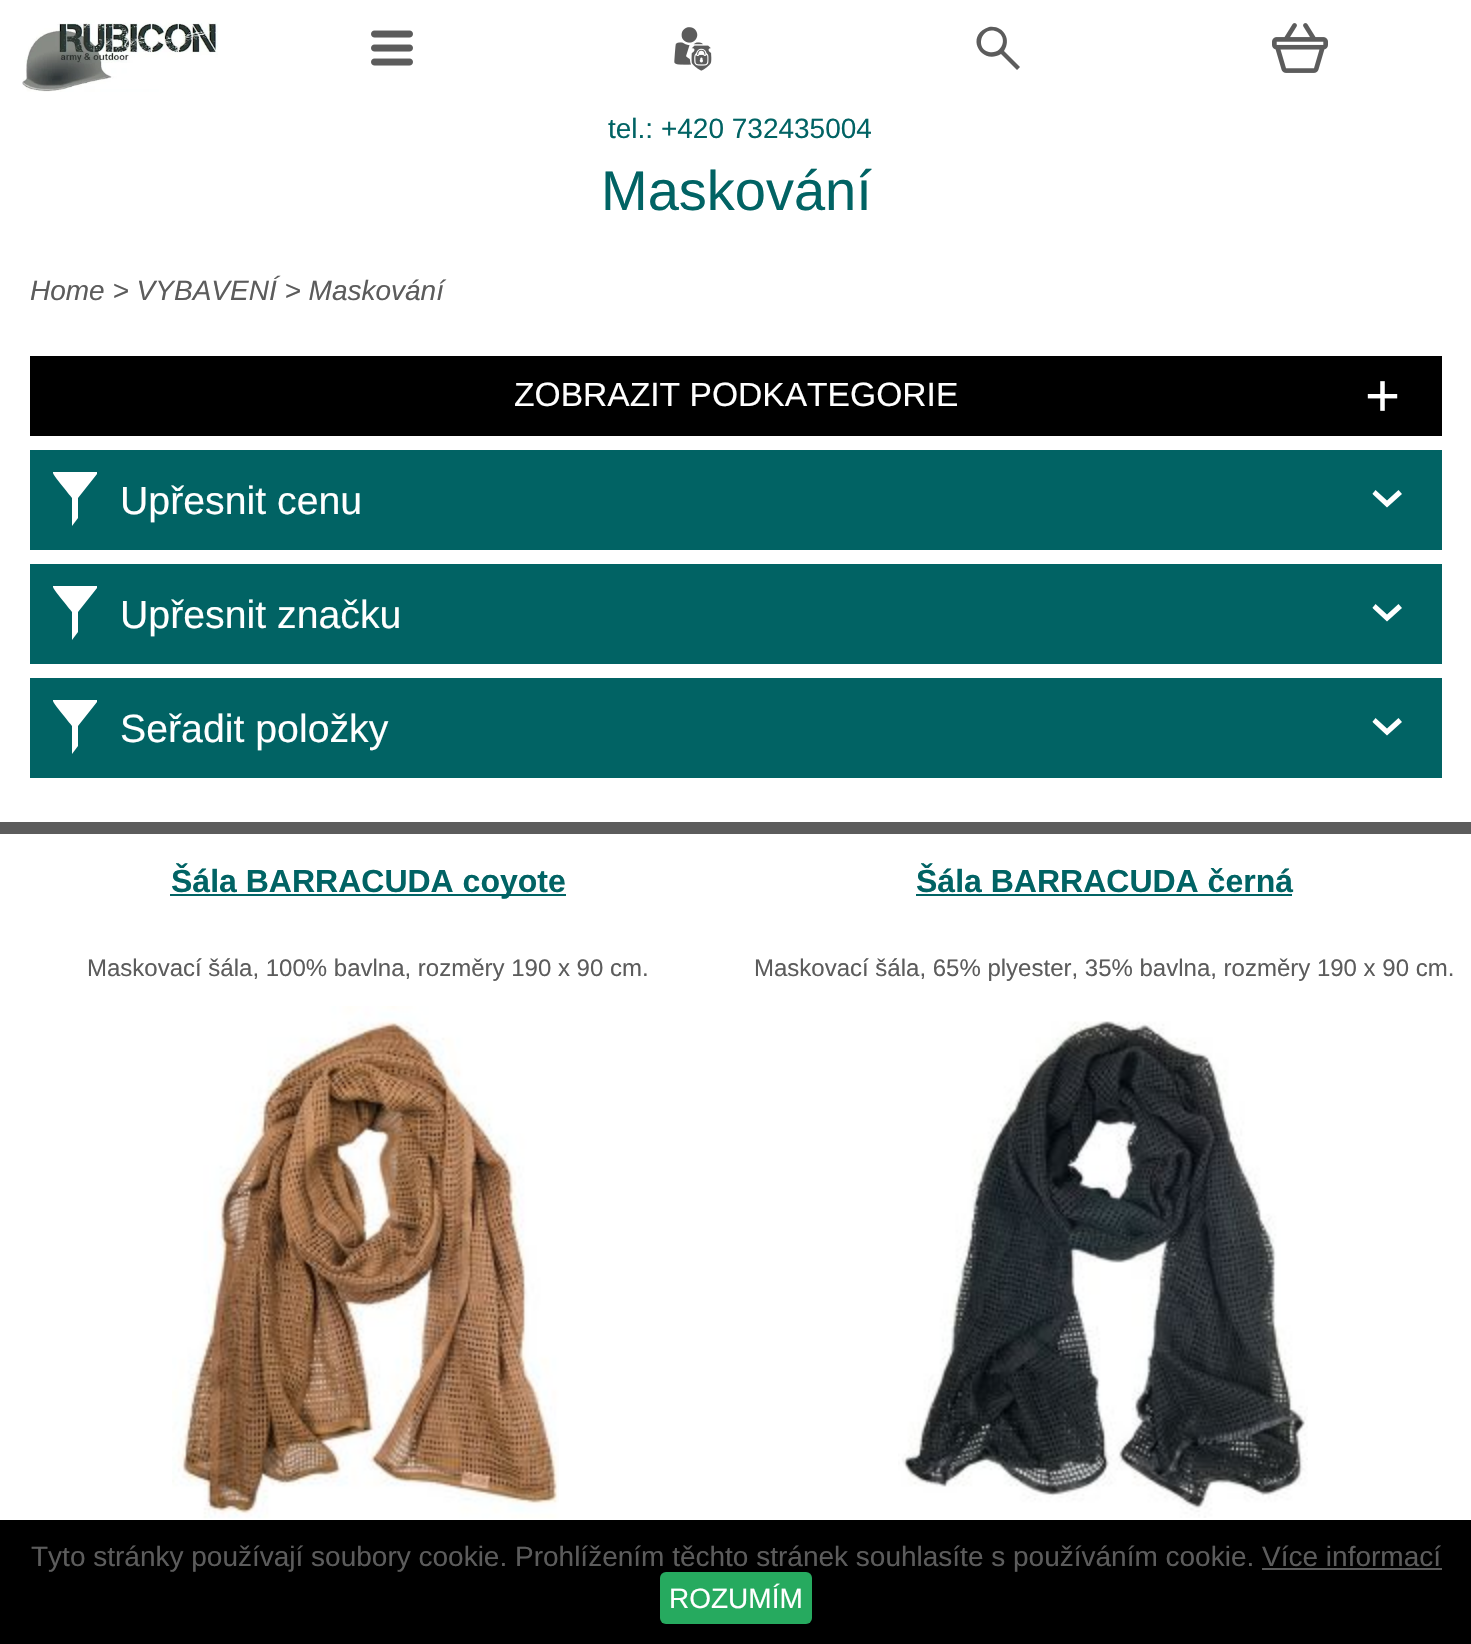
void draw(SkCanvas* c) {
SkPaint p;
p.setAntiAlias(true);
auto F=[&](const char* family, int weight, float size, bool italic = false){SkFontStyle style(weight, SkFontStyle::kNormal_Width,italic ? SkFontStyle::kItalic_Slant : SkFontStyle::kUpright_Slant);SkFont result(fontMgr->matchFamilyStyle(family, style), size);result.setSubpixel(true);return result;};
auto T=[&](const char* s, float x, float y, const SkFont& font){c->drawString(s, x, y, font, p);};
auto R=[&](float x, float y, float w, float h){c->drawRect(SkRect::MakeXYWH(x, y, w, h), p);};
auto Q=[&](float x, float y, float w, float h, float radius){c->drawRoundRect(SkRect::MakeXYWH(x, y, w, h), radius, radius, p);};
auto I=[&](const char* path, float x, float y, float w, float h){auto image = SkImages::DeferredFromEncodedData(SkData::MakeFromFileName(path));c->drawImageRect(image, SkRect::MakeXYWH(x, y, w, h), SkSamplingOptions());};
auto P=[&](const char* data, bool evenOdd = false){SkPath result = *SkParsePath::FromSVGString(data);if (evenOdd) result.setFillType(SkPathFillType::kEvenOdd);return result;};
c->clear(0xffffffff);
I("1.png",22,20,196,72);
I("2.png",371,30,42,36);
I("3.png",674,27,38,44);
p.setColor(0xff5c5c5c);
c->drawPath(P("M989 27c14-2 23 12 15 24l16 16l-3 3l-16-16c-20 12-37-19-12-27zm6 4c-14-4-20 18-6 21c14 3 20-17 6-21z"),p);
I("4.png",1272,23,56,50);
auto f1 = F("Liberation Sans",400,28);
p.setColor(0xff016364);
T("tel.: +420 732435004",608,138,f1);
auto f2 = F("Liberation Sans",400,56);
T("Maskování",601,210,f2);
auto f3 = F("Liberation Sans",400,28,true);
p.setColor(0xff5c5c5c);
T("Home > VYBAVENÍ > Maskování",30,300,f3);
p.setColor(0xff000000);
R(30,356,1412,80);
auto f4 = F("Liberation Sans",400,33.6);
p.setColor(0xffffffff);
T("ZOBRAZIT PODKATEGORIE",514,406,f4);
auto f5 = F("Liberation Sans",400,60);
T("+",1365,416,f5);
p.setColor(0xff016364);
R(30,450,1412,100);
p.setColor(0xffffffff);
c->drawPath(P("M53 473v-1h44v2l-19 24v20l-6 8v-28c-3-4-19-23-19-25z"),p);
auto f6 = F("Liberation Sans",400,39.25);
T("Upřesnit cenu",120,514,f6);
c->drawPath(P("M1374 492l1.5-2l11.5 10.5l11.5-10.5l3.5 4l-15 13.5l-14-13c-1-1 0-1.5 1-2.5z"),p);
p.setColor(0xff016364);
R(30,564,1412,100);
p.setColor(0xffffffff);
c->drawPath(P("M53 587v-1h44v2l-19 24v20l-6 8v-28c-3-4-19-23-19-25z"),p);
T("Upřesnit značku",120,628,f6);
c->drawPath(P("M1374 606l1.5-2l11.5 10.5l11.5-10.5l3.5 4l-15 13.5l-14-13c-1-1 0-1.5 1-2.5z"),p);
p.setColor(0xff016364);
R(30,678,1412,100);
p.setColor(0xffffffff);
c->drawPath(P("M53 701v-1h44v2l-19 24v20l-6 8v-28c-3-4-19-23-19-25z"),p);
T("Seřadit položky",120,742,f6);
c->drawPath(P("M1374 720l1.5-2l11.5 10.5l11.5-10.5l3.5 4l-15 13.5l-14-13c-1-1 0-1.5 1-2.5z"),p);
p.setColor(0xff5c5c5c);
R(0,822,1471,12);
p.setColor(0xff016364);
R(170,894,396,2);
auto f7 = F("Liberation Sans",700,32);
T("Šála BARRACUDA coyote",171,892,f7);
auto f8 = F("Liberation Sans",400,24);
p.setColor(0xff5c5c5c);
T("Maskovací šála, 100% bavlna, rozměry 190 x 90 cm.",87,976,f8);
I("5.png",172,1006,387,513);
p.setColor(0xff016364);
T("Šála BARRACUDA černá",916,892,f7);
R(916,894,376,2);
p.setColor(0xff5c5c5c);
T("Maskovací šála, 65% plyester, 35% bavlna, rozměry 190 x 90 cm.",754,976,f8);
I("6.png",898,1021,410,497);
p.setColor(0xff000000);
R(0,1520,1471,124);
p.setColor(0xff5c5c5c);
T("Tyto stránky používají soubory cookie. Prohlížením těchto stránek souhlasíte s používáním cookie. Více informací",31,1566,f1);
R(1262,1568,180,2);
p.setColor(0xff26aa5f);
Q(660,1572,152,52,6);
p.setColor(0xffffffff);
T("ROZUMÍM",669,1608,f1);
}
